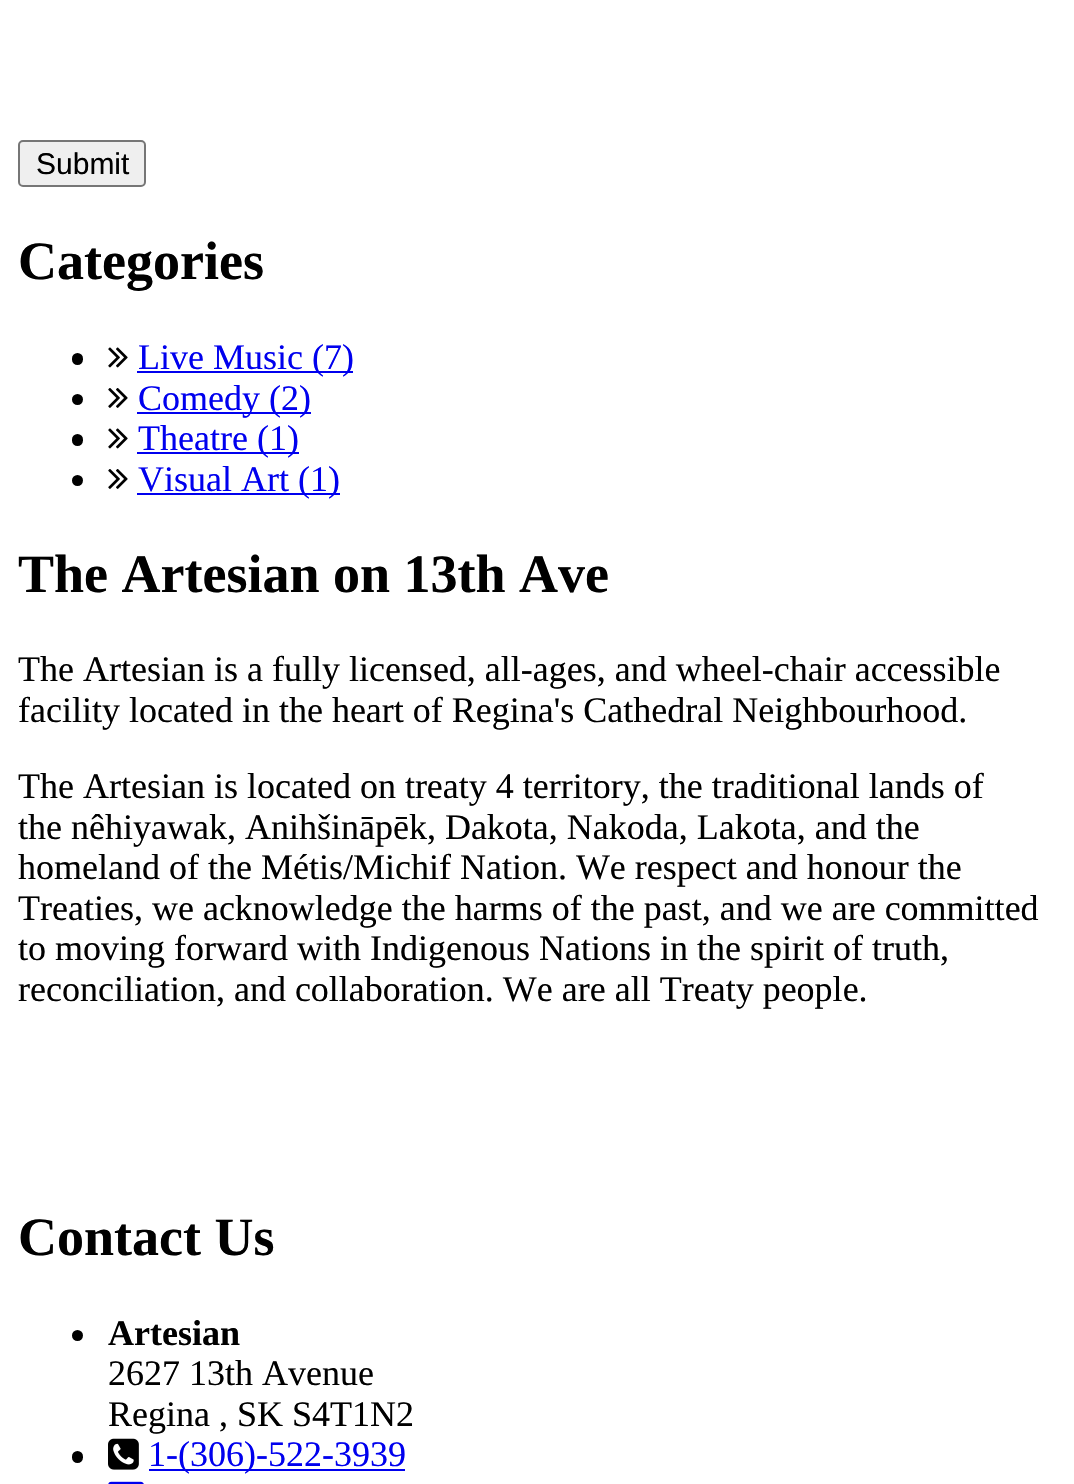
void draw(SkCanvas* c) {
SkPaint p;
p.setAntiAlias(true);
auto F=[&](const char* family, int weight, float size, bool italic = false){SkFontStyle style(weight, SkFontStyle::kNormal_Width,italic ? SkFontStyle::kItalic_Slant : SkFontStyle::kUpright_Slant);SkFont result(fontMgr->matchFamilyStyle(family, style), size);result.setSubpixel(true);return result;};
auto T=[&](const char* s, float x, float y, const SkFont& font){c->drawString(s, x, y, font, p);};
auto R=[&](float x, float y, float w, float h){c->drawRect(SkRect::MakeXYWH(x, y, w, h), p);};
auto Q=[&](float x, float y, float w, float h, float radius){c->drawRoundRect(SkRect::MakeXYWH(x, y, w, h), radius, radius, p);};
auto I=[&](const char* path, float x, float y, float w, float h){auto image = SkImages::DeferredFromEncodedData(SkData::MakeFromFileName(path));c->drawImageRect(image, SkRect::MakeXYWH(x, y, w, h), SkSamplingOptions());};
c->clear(0xffffffff);
p.setColor(0xffefefef);
c->drawRoundRect(SkRect::MakeXYWH(19,141,126,45),4,4,p);
p.setStroke(true);
p.setStrokeWidth(2);
p.setColor(0xff767676);
c->drawRoundRect(SkRect::MakeXYWH(19,141,126,45),4,4,p);
auto f1 = F("Liberation Sans",400,30);
p.setStroke(false);
p.setColor(0xff000000);
T("Submit",36,174,f1);
auto f2 = F("Liberation Serif",700,54);
T("Categories",18,279,f2);
Q(72,353,11,12,5.5);
I("1.png",108,347,20,21);
p.setColor(0xff0000ee);
R(137,371,216,2);
auto f3 = F("Liberation Serif",400,36);
T("Live Music (7)",138,369,f3);
p.setColor(0xff000000);
c->drawCircle(77.5,399.5,5.5,p);
I("2.png",108,388,20,20);
p.setColor(0xff0000ee);
R(137,412,174,2);
T("Comedy (2)",138,410,f3);
p.setColor(0xff000000);
Q(72,434,11,12,5.5);
I("1.png",108,428,20,21);
p.setColor(0xff0000ee);
R(137,452,162,2);
T("Theatre (1)",138,450,f3);
p.setColor(0xff000000);
c->drawCircle(77.5,480.5,5.5,p);
I("2.png",108,469,20,20);
p.setColor(0xff0000ee);
R(137,493,203,2);
T("Visual Art (1)",138,491,f3);
p.setColor(0xff000000);
T("The Artesian on 13th Ave",18,592,f2);
T("The Artesian is a fully licensed, all-ages, and wheel-chair accessible",18,681,f3);
T("facility located in the heart of Regina's Cathedral Neighbourhood.",18,722,f3);
T("The Artesian is located on treaty 4 territory, the traditional lands of",18,798,f3);
T("the nêhiyawak, Anihšināpēk, Dakota, Nakoda, Lakota, and the",18,839,f3);
T("homeland of the Métis/Michif Nation. We respect and honour the",18,879,f3);
T("Treaties, we acknowledge the harms of the past, and we are committed",18,920,f3);
T("to moving forward with Indigenous Nations in the spirit of truth,",18,960,f3);
T("reconciliation, and collaboration. We are all Treaty people.",18,1001,f3);
T("Contact Us",18,1255,f2);
c->drawCircle(77.5,1335.5,5.5,p);
auto f4 = F("Liberation Serif",700,36);
T("Artesian",108,1345,f4);
T("2627 13th Avenue",108,1385,f3);
T("Regina , SK S4T1N2",108,1426,f3);
Q(72,1451,11,12,5.5);
I("3.png",108,1438,31,32);
p.setColor(0xff0000ee);
R(149,1469,256,2);
T("1-(306)-522-3939",148,1466,f3);
I("4.png",108,1481,36,3);
}
